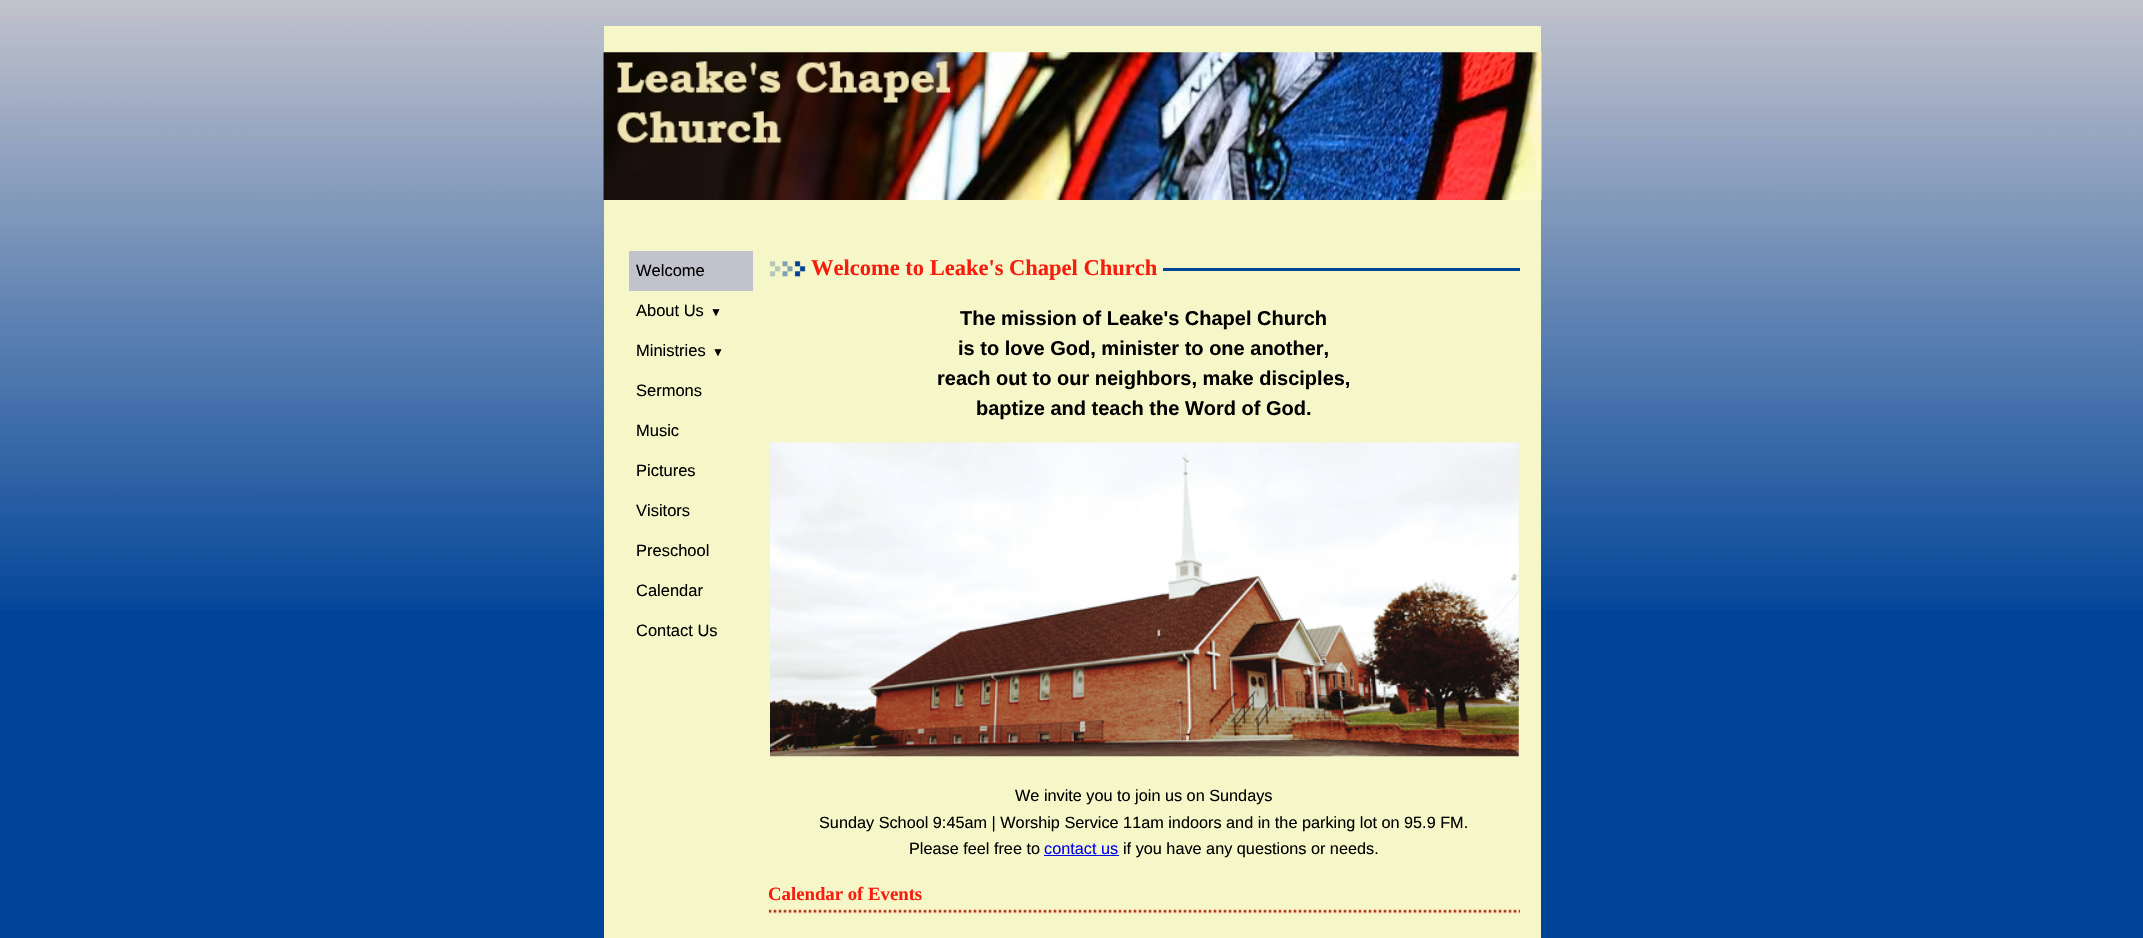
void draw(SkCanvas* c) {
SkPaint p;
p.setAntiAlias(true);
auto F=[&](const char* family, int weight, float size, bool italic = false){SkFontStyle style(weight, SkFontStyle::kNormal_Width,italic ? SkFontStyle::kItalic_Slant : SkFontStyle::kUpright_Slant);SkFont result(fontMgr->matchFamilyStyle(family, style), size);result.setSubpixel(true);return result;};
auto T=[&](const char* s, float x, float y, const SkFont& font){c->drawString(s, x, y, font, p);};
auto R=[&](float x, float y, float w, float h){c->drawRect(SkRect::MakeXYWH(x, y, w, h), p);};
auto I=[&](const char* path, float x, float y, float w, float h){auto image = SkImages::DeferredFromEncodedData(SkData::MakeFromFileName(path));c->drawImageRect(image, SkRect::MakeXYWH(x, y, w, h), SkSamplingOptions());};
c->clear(0xff004499);
I("1.png",0,0,2143,610);
p.setColor(0xfff6f7c8);
R(604,26,937,912);
I("2.png",603,52,939,148);
I("3.png",603,52,939,148);
p.setColor(0xffc1c2cc);
R(629,251,124,40);
auto f1 = F("Liberation Sans",400,16.5);
p.setColor(0xff000000);
T("Welcome",636,276,f1);
T("About Us",636,316,f1);
auto f2 = F("Liberation Sans",400,12);
T("▼",710,316,f2);
T("Ministries",636,356,f1);
T("▼",712,356,f2);
T("Sermons",636,396,f1);
T("Music",636,436,f1);
T("Pictures",636,476,f1);
T("Visitors",636,516,f1);
T("Preschool",636,556,f1);
T("Calendar",636,596,f1);
T("Contact Us",636,636,f1);
I("4.png",769,261,37,16);
auto f3 = F("Liberation Serif",700,22.5);
p.setColor(0xfff71c0c);
T("Welcome to Leake's Chapel Church",811,275,f3);
p.setColor(0xff004499);
R(1163,268,357,3);
auto f4 = F("Liberation Sans",700,20);
p.setColor(0xff000000);
T("The mission of Leake's Chapel Church",960,325,f4);
T("is to love God, minister to one another,",958,355,f4);
T("reach out to our neighbors, make disciples,",937,385,f4);
T("baptize and teach the Word of God.",976,415,f4);
I("5.png",770,442,749,315);
auto f5 = F("Liberation Sans",400,16.25);
T("We invite you to join us on Sundays",1015,801,f5);
T("Sunday School 9:45am | Worship Service 11am indoors and in the parking lot on 95.9 FM.",819,828,f5);
T("Please feel free to",909,854,f5);
p.setColor(0xff0000ee);
T("contact us",1044,854,f5);
R(1044,855,75,1);
p.setColor(0xff000000);
T("if you have any questions or needs.",1123,854,f5);
auto f6 = F("Liberation Serif",700,18.75);
p.setColor(0xfff71c0c);
T("Calendar of Events",768,900,f6);
I("6.png",768,908,752,6);
}
